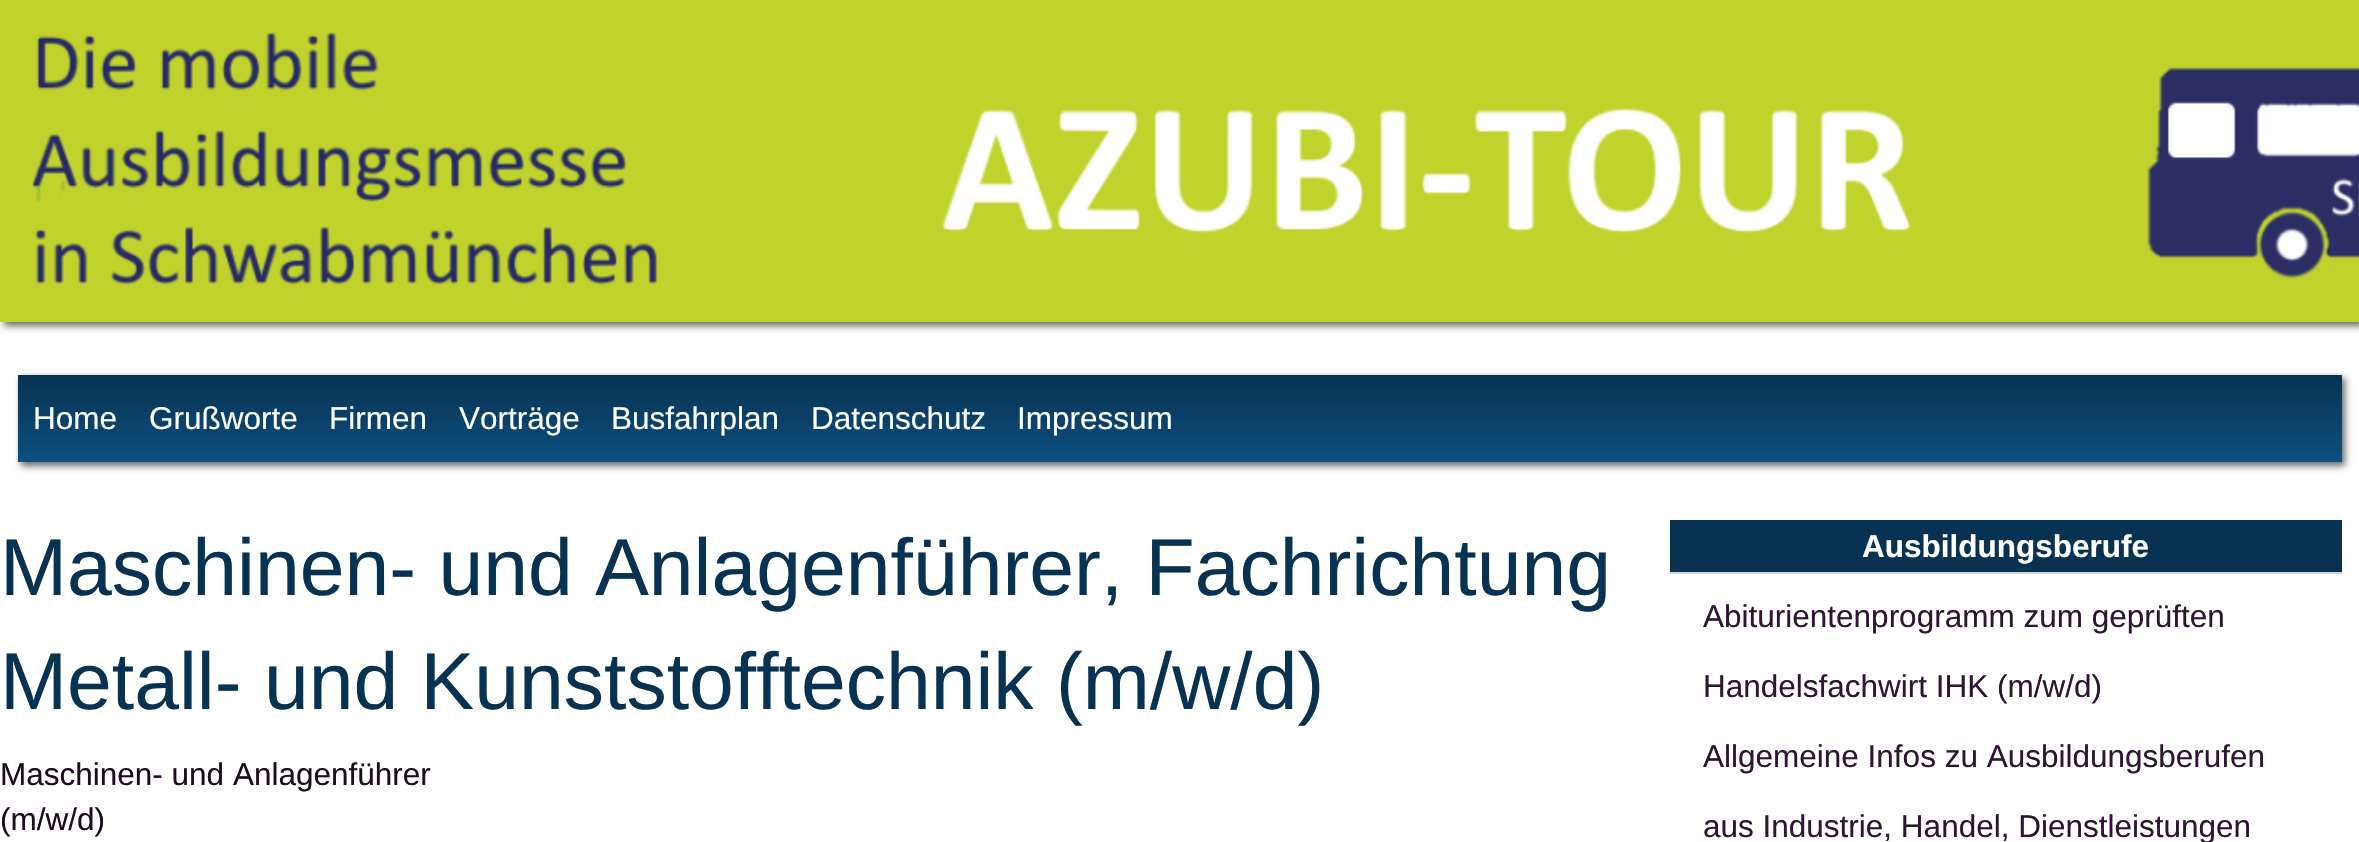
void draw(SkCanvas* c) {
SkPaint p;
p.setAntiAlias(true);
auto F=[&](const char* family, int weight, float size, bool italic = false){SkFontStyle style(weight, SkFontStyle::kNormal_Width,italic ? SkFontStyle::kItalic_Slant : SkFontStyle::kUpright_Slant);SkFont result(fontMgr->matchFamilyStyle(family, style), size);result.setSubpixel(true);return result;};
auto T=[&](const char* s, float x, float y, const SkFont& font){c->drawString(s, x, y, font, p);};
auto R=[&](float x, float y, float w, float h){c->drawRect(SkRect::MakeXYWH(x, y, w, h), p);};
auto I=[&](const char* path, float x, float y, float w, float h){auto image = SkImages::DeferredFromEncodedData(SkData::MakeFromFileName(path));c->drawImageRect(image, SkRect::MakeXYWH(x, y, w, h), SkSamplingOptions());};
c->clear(0xffffffff);
p.setColor(0x96000000);
p.setMaskFilter(SkMaskFilter::MakeBlur(kNormal_SkBlurStyle, 3.5));
c->drawRect(SkRect::MakeXYWH(4,4,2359,322),p);
p.setMaskFilter(nullptr);
p.setColor(0xffc0d32d);
R(0,0,2359,322);
I("1.png",31,32,2328,254);
p.setColor(0x96000000);
p.setMaskFilter(SkMaskFilter::MakeBlur(kNormal_SkBlurStyle, 3.5));
c->drawRect(SkRect::MakeXYWH(21,378,2324,88),p);
p.setMaskFilter(nullptr);
{
const SkColor colors[] = {0xff083251,0xff0d4f7f};
const float stops[] = {0,1};
const SkPoint ends[] = {{1180,374}, {1180,462}};
p.setShader(SkGradientShader::MakeLinear(ends, colors, stops, 2, SkTileMode::kClamp));
p.setAlpha(255);
}
R(18,375,2324,87);
auto f1 = F("Liberation Sans",400,31.5);
p.setShader(nullptr);
p.setColor(0xffffffff);
T("Home",33,429,f1);
T("Grußworte",149,429,f1);
T("Firmen",329,429,f1);
T("Vorträge",459,429,f1);
T("Busfahrplan",611,429,f1);
T("Datenschutz",811,429,f1);
T("Impressum",1017,429,f1);
auto f2 = F("Liberation Sans",400,80.5);
p.setColor(0xff083251);
T("Maschinen- und Anlagenführer, Fachrichtung",0,595,f2);
T("Metall- und Kunststofftechnik (m/w/d)",0,709,f2);
p.setColor(0xff1d0b20);
T("Maschinen- und Anlagenführer",0,785,f1);
T("(m/w/d)",0,830,f1);
p.setColor(0xff083251);
R(1670,520,672,52);
p.setColor(0xffd3d3d3);
R(1670,572,672,2);
auto f3 = F("Liberation Sans",700,31.5);
p.setColor(0xffffffff);
T("Ausbildungsberufe",1862,557,f3);
p.setColor(0xff2e1532);
T("Abiturientenprogramm zum geprüften",1703,627,f1);
T("Handelsfachwirt IHK (m/w/d)",1703,697,f1);
T("Allgemeine Infos zu Ausbildungsberufen",1703,767,f1);
T("aus Industrie, Handel, Dienstleistungen",1703,837,f1);
}
